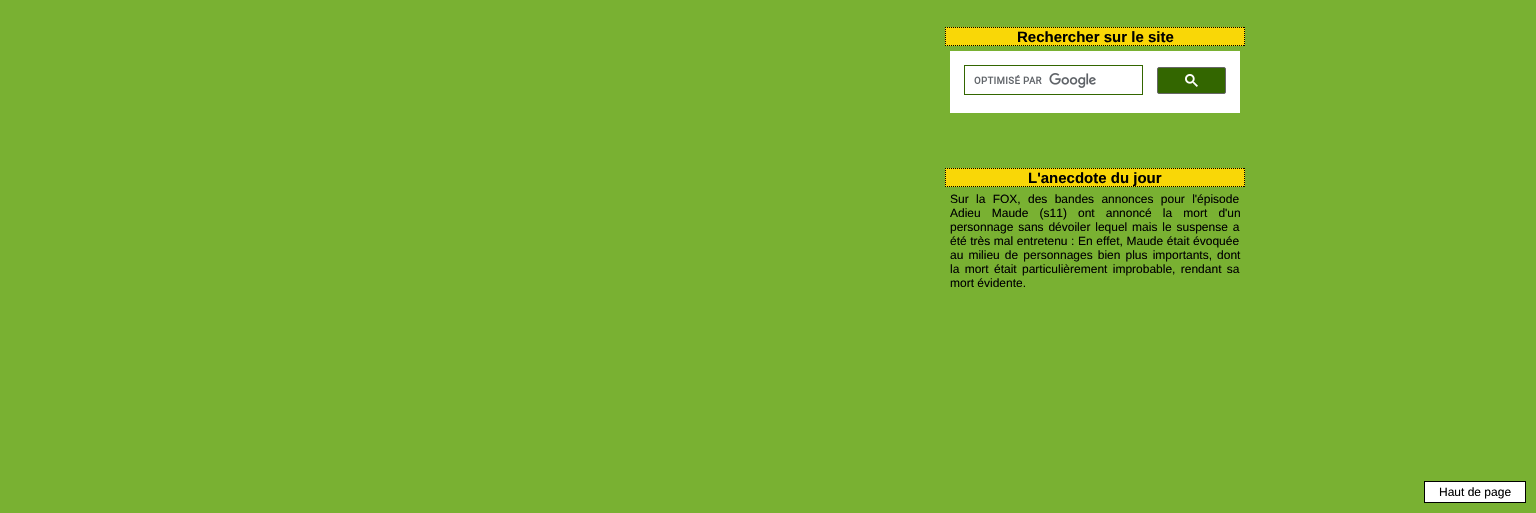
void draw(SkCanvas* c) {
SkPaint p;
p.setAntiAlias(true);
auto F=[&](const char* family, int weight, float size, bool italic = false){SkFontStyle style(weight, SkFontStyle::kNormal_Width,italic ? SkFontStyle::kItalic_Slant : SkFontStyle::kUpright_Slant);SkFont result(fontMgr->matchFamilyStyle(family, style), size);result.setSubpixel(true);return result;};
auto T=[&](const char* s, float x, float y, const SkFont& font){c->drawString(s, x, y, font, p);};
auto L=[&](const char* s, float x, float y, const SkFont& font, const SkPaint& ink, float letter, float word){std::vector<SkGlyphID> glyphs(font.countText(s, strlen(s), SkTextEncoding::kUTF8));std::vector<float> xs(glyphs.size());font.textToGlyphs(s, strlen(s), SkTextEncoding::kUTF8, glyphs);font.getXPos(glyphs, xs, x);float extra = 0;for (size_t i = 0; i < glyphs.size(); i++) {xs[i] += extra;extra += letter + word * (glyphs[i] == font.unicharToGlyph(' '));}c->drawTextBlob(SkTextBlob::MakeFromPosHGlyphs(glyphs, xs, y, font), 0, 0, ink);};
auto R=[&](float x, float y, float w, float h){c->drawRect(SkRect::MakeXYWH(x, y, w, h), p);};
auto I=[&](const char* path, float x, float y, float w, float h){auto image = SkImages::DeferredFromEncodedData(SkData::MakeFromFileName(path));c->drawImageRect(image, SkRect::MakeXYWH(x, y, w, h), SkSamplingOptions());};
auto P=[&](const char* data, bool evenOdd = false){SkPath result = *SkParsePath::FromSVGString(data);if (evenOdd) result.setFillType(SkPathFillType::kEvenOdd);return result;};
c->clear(0xff79b132);
p.setColor(0xfff9d707);
R(945,27,300,19);
p.setStroke(true);
p.setStrokeWidth(1);
p.setColor(0xff000000);
p.setPathEffect(SkDashPathEffect::Make({{1,1}}, 0));
c->drawPath(P("M945 27.5h300"),p);
p.setPathEffect(nullptr);
p.setPathEffect(SkDashPathEffect::Make({{1,1}}, 0));
c->drawPath(P("M1244.5 27v19"),p);
p.setPathEffect(nullptr);
p.setPathEffect(SkDashPathEffect::Make({{1,1}}, 0));
c->drawPath(P("M945 45.5h300"),p);
p.setPathEffect(nullptr);
p.setPathEffect(SkDashPathEffect::Make({{1,1}}, 0));
c->drawPath(P("M945.5 27v19"),p);
p.setPathEffect(nullptr);
auto f1 = F("Liberation Sans",700,15);
p.setStroke(false);
T("Rechercher sur le site",1017,42,f1);
p.setColor(0xffffffff);
R(950,51,290,62);
p.setStroke(true);
p.setColor(0xff336600);
c->drawRect(SkRect::MakeXYWH(964.5,65.5,178,29),p);
I("1.png",974,73,122,15);
p.setStroke(false);
c->drawRoundRect(SkRect::MakeXYWH(1157.5,67.5,68,26),1.5,1.5,p);
p.setStroke(true);
p.setColor(0xff666666);
c->drawRoundRect(SkRect::MakeXYWH(1157.5,67.5,68,26),1.5,1.5,p);
I("2.png",1185,74,13,13);
p.setStroke(false);
p.setColor(0xfff9d707);
R(945,168,300,19);
p.setStroke(true);
p.setColor(0xff000000);
p.setPathEffect(SkDashPathEffect::Make({{1,1}}, 0));
c->drawPath(P("M945 168.5h300"),p);
p.setPathEffect(nullptr);
p.setPathEffect(SkDashPathEffect::Make({{1,1}}, 0));
c->drawPath(P("M1244.5 168v19"),p);
p.setPathEffect(nullptr);
p.setPathEffect(SkDashPathEffect::Make({{1,1}}, 0));
c->drawPath(P("M945 186.5h300"),p);
p.setPathEffect(nullptr);
p.setPathEffect(SkDashPathEffect::Make({{1,1}}, 0));
c->drawPath(P("M945.5 168v19"),p);
p.setPathEffect(nullptr);
p.setStroke(false);
T("L'anecdote du jour",1028,183,f1);
auto f2 = F("Liberation Sans",400,12);
L("Sur la FOX, des bandes annonces pour l'épisode",950,203,f2,p,0,4);
L("Adieu Maude (s11) ont annoncé la mort d'un",950,217,f2,p,0,7.75);
L("personnage sans dévoiler lequel mais le suspense a",950,231,f2,p,0,1.5);
L("été très mal entretenu : En effet, Maude était évoquée",950,245,f2,p,0,.25);
L("au milieu de personnages bien plus importants, dont",950,259,f2,p,0,1.75);
L("la mort était particulièrement improbable, rendant sa",950,273,f2,p,0,2);
T("mort évidente.",950,287,f2);
p.setColor(0xffffffff);
c->drawRect(SkRect::MakeXYWH(1424.5,481.5,101,21),p);
p.setStroke(true);
p.setColor(0xff000000);
c->drawRect(SkRect::MakeXYWH(1424.5,481.5,101,21),p);
p.setStroke(false);
T("Haut de page",1439,496,f2);
}
